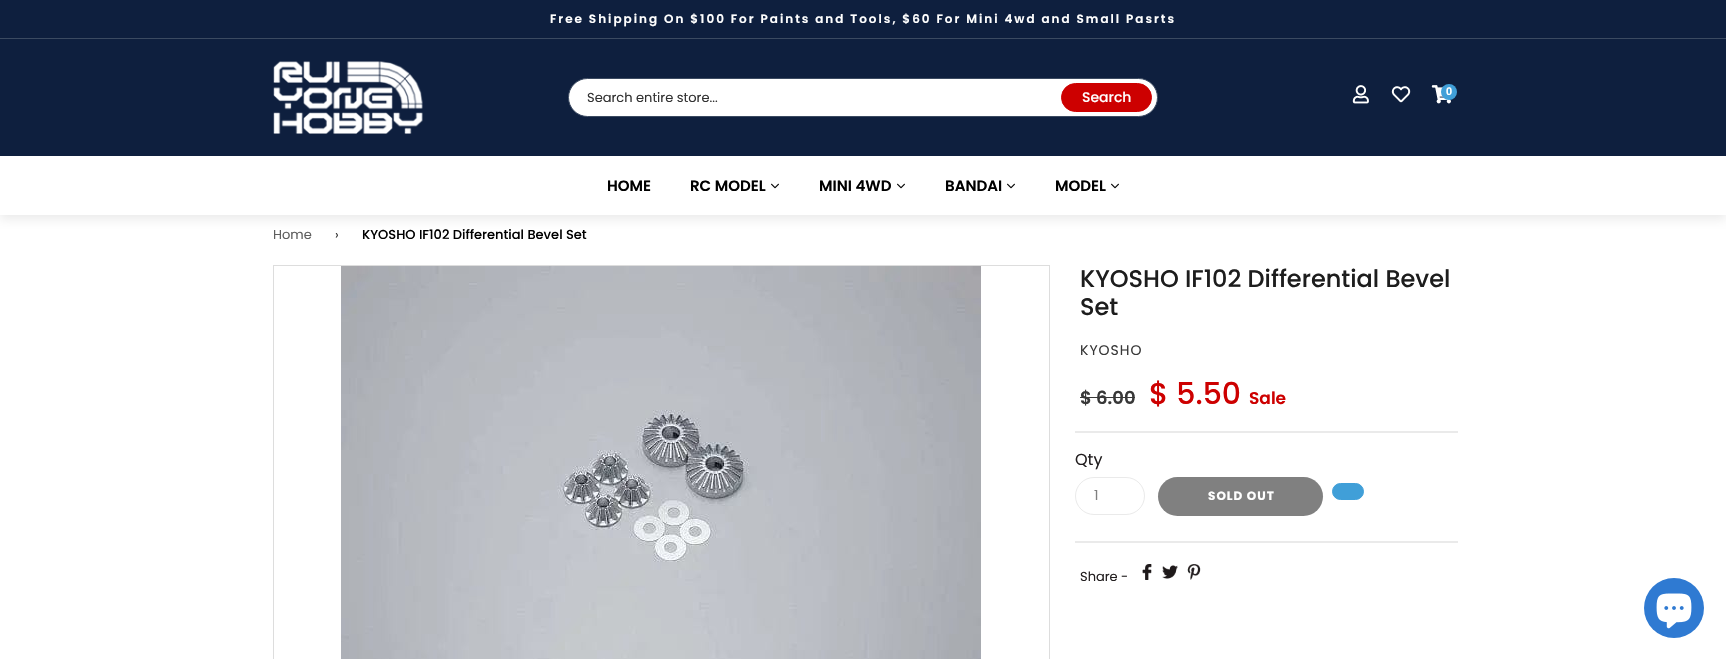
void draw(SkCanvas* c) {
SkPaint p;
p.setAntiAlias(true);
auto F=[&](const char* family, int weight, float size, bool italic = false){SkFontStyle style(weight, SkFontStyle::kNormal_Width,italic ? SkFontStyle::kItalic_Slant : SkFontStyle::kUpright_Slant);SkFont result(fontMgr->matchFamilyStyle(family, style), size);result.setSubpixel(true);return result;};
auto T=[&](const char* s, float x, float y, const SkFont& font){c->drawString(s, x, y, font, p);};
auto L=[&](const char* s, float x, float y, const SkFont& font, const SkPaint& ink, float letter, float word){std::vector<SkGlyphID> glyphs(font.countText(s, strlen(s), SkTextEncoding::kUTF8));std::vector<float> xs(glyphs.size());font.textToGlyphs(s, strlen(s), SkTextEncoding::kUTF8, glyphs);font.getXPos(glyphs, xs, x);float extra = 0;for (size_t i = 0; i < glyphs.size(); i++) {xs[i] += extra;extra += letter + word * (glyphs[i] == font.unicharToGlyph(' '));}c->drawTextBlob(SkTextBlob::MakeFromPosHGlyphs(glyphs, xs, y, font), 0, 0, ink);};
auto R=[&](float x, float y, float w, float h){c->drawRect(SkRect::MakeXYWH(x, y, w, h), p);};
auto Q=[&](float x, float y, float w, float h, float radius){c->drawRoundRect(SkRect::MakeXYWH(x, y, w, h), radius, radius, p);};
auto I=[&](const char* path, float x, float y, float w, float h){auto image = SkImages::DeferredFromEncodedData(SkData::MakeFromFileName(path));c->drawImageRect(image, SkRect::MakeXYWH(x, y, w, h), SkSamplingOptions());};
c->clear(0xffffffff);
c->save();
c->clipRect(SkRect::MakeXYWH(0,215,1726,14));
p.setColor(0xffeaeaea);
p.setMaskFilter(SkMaskFilter::MakeBlur(kNormal_SkBlurStyle, 5));
c->drawRect(SkRect::MakeXYWH(0,42,1726,177),p);
p.setMaskFilter(nullptr);
c->restore();
p.setColor(0xff0e1f3e);
R(0,0,1726,38);
auto f1 = F("Poppins",600,12);
p.setColor(0xffffffff);
L("Free Shipping On $100 For Paints and Tools, $60 For Mini 4wd and Small Pasrts",550,23,f1,p,2,0);
p.setColor(0xff0e1f3e);
R(0,39,1726,117);
p.setColor(0xff3b4a61);
R(0,38,1726,1);
I("1.png",273,61,150,73);
p.setColor(0xffffffff);
c->drawRoundRect(SkRect::MakeXYWH(568.5,78.5,589,38),19,19,p);
p.setStroke(true);
p.setStrokeWidth(1);
p.setColor(0xff3b4a61);
c->drawRoundRect(SkRect::MakeXYWH(568.5,78.5,589,38),19,19,p);
auto f2 = F("Poppins",400,13);
p.setStroke(false);
p.setColor(0xff323232);
T("Search entire store...",587,102,f2);
p.setColor(0xffcd0000);
c->drawRoundRect(SkRect::MakeXYWH(1061.5,83.5,90,28),14,14,p);
p.setStroke(true);
c->drawRoundRect(SkRect::MakeXYWH(1061.5,83.5,90,28),14,14,p);
auto f3 = F("Poppins",500,14);
p.setStroke(false);
p.setColor(0xffffffff);
T("Search",1082,102,f3);
I("2.png",1352,85,17,19);
I("3.png",1391,86,20,17);
I("4.png",1431,85,20,19);
p.setColor(0xff409fd8);
c->drawCircle(1449,92,8,p);
auto f4 = F("Liberation Sans",700,11);
p.setColor(0xffffffff);
T("0",1446,95,f4);
auto f5 = F("Poppins",600,15);
p.setColor(0xff000000);
T("HOME",607,191,f5);
T("RC MODEL",690,191,f5);
I("5.png",771,183,8,6);
T("MINI 4WD",819,191,f5);
I("5.png",897,183,8,6);
T("BANDAI",945,191,f5);
I("5.png",1007,183,8,6);
T("MODEL",1055,191,f5);
I("5.png",1111,183,8,6);
p.setColor(0xff5f5f5f);
T("Home",273,239,f2);
p.setColor(0xff383838);
T("›",335,239,f2);
auto f6 = F("Poppins",500,13);
p.setColor(0xff000000);
T("KYOSHO IF102 Differential Bevel Set",362,239,f6);
p.setStroke(true);
p.setColor(0xffdddddd);
c->drawRect(SkRect::MakeXYWH(273.5,265.5,776,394),p);
I("6.png",341,266,640,393);
auto f7 = F("Poppins",500,24);
p.setStroke(false);
p.setColor(0xff1d1d1d);
T("KYOSHO IF102 Differential Bevel",1080,287,f7);
T("Set",1080,315,f7);
auto f8 = F("Poppins",400,14);
p.setColor(0xff383838);
L("KYOSHO",1080,355,f8,p,1,0);
auto f9 = F("Poppins",600,18);
T("$ 6.00",1080,404,f9);
R(1080,397,55,1);
auto f10 = F("Poppins",500,30);
p.setColor(0xffcd0000);
T("$ 5.50",1149,404,f10);
auto f11 = F("Poppins",600,17);
T("Sale",1249,404,f11);
p.setColor(0xffeaeaea);
R(1075,431,383,2);
R(1075,541,383,2);
auto f12 = F("Poppins",400,16);
p.setColor(0xff231f20);
T("Qty",1075,465,f12);
p.setStroke(true);
p.setColor(0xffeaeaea);
c->drawRoundRect(SkRect::MakeXYWH(1075.5,477.5,69,37),18.5,18.5,p);
p.setStroke(false);
p.setColor(0xff808080);
T("1",1094,500,f8);
Q(1158,477,165,39,19.5);
auto f13 = F("Poppins",700,12);
p.setColor(0xffffffff);
L("SOLD OUT",1208,500,f13,p,1,0);
p.setColor(0xff409fd8);
c->drawRoundRect(SkRect::MakeXYWH(1332.5,483.5,31,16),8,8,p);
p.setStroke(true);
c->drawRoundRect(SkRect::MakeXYWH(1332.5,483.5,31,16),8,8,p);
p.setStroke(false);
p.setColor(0xff231f20);
T("Share -",1080,581,f2);
I("7.png",1142,564,10,16);
I("8.png",1162,565,16,14);
I("9.png",1187,564,14,16);
p.setColor(0xff2f7ad2);
c->drawCircle(1674,608,30,p);
I("10.png",1656,593,36,36);
}
